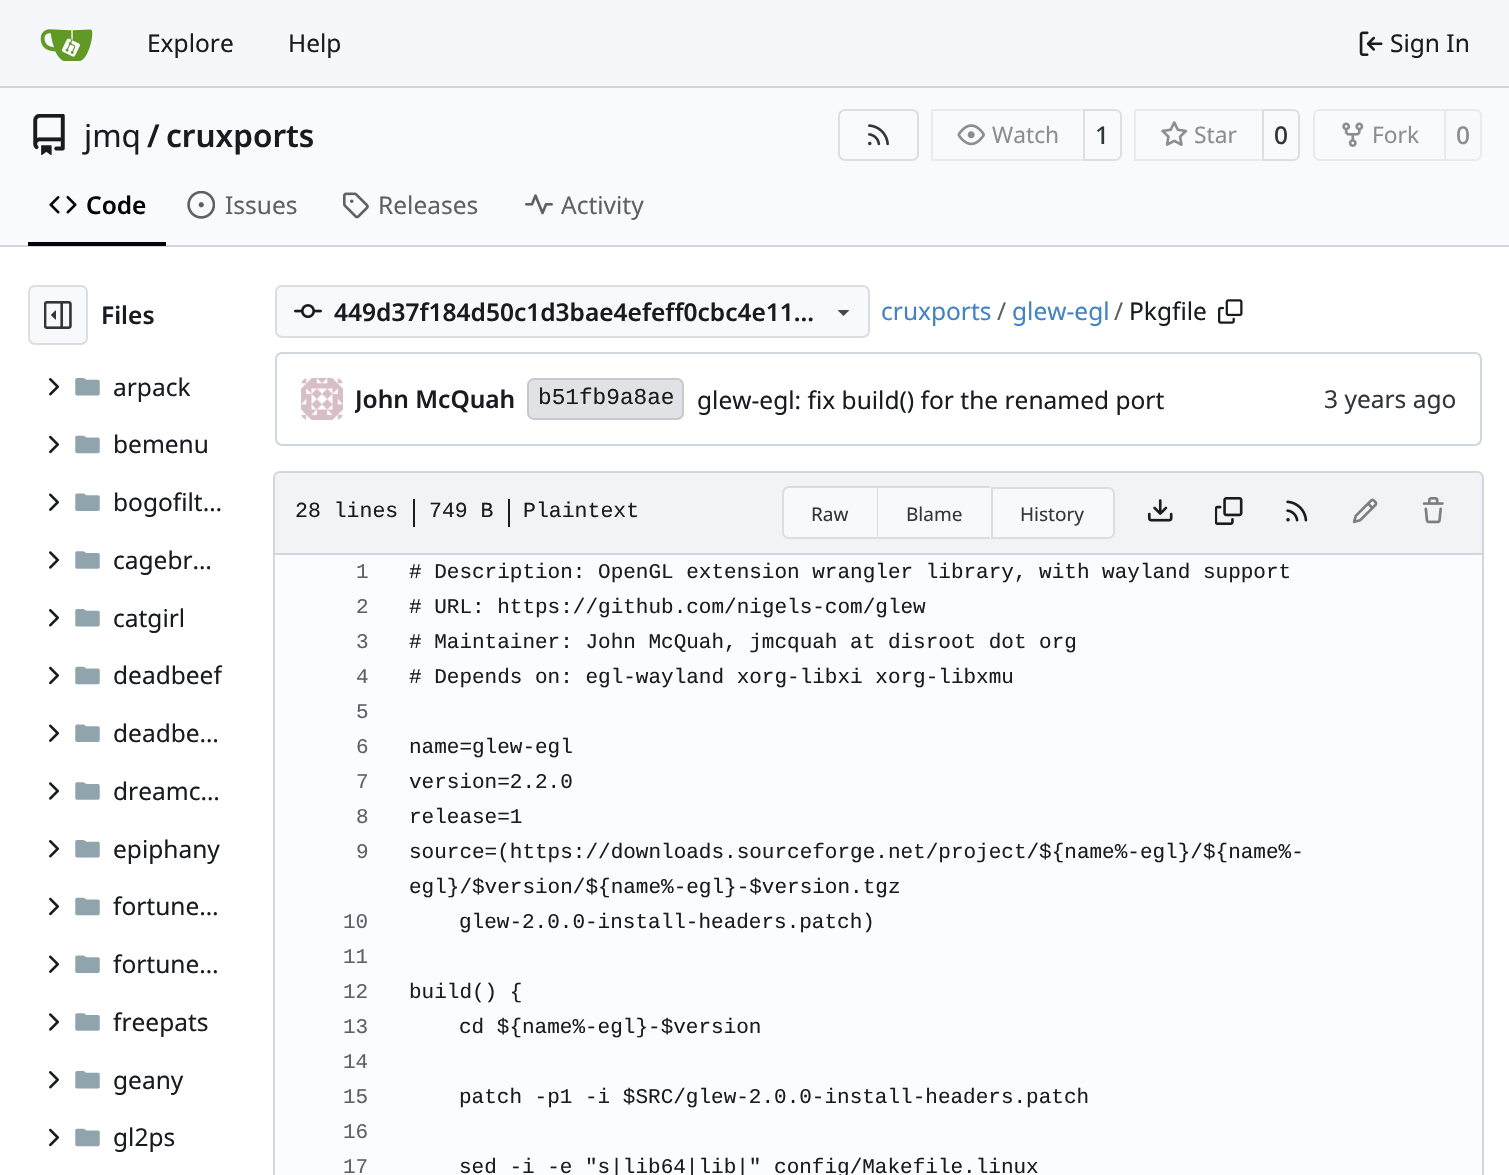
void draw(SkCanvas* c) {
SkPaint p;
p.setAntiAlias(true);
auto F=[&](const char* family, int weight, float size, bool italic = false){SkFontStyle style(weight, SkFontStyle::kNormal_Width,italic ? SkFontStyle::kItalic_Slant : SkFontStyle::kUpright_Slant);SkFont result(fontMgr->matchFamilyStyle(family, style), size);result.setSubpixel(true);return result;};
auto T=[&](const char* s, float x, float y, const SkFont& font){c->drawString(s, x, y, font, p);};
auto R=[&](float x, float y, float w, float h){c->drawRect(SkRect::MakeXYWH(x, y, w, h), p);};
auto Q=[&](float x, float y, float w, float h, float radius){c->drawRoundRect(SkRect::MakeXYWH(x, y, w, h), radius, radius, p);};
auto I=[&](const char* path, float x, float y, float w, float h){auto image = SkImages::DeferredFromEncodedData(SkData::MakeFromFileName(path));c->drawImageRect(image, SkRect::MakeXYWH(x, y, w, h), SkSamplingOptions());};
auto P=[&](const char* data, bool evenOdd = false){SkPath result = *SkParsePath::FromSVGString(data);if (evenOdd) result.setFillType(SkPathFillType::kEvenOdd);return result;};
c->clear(0xffffffff);
p.setColor(0xfff6f7fa);
R(0,0,1509,86);
p.setColor(0xffd0d7de);
R(0,86,1509,2);
I("1.png",40,29,53,32);
auto f1 = F("Noto Sans",400,24.5);
p.setColor(0xff181c21);
T("Explore",147,52,f1);
T("Help",288,52,f1);
I("2.png",1359,31,24,25);
T("Sign In",1390,52,f1);
p.setColor(0xfff9fafb);
R(0,88,1509,157);
I("3.png",33,114,32,42);
auto f2 = F("Noto Sans",400,31.5);
p.setColor(0xff181c21);
T("jmq",84,147,f2);
auto f3 = F("Noto Sans",600,31.5);
T("/",147,147,f3);
T("cruxports",166,147,f3);
p.setStroke(true);
p.setStrokeWidth(2);
p.setColor(0xffdddee1);
c->drawRoundRect(SkRect::MakeXYWH(839,110,79,50),6,6,p);
I("4.png",868,124,21,22);
c->drawPath(P("M1084 110h31c3.5 0 6 2.5 6 6v38c0 3.5-2.5 6-6 6h-31z"),p);
p.setStroke(false);
p.setColor(0x8cf8f9fb);
c->drawPath(P("M938 109h147v52h-147c-4 0-7-3-7-7v-38c0-4 3-7 7-7z"),p);
p.setStroke(true);
p.setColor(0x0f000017);
c->drawRect(SkRect::MakeXYWH(932,110,152,50),p);
I("5.png",957,124,28,22);
auto f4 = F("Noto Sans",400,22.75);
p.setStroke(false);
p.setColor(0xff8a8e91);
T("Watch",992,143,f4);
auto f5 = F("Noto Sans",500,24.5);
p.setColor(0xff30363b);
T("1",1095,144,f5);
p.setStroke(true);
p.setColor(0xffdddee1);
c->drawPath(P("M1263 110h30c3.5 0 6 2.5 6 6v38c0 3.5-2.5 6-6 6h-30z"),p);
p.setStroke(false);
p.setColor(0x8cf8f9fb);
c->drawPath(P("M1141 109h123v52h-123c-4 0-7-3-7-7v-38c0-4 3-7 7-7z"),p);
p.setStroke(true);
p.setColor(0x0f000017);
c->drawRect(SkRect::MakeXYWH(1135,110,128,50),p);
I("6.png",1161,121,27,25);
p.setStroke(false);
p.setColor(0xff8a8e91);
T("Star",1194,143,f4);
p.setColor(0xff30363b);
T("0",1274,144,f5);
p.setStroke(true);
p.setColor(0xffe9eaed);
c->drawPath(P("M1320 110h125v50h-125c-3.5 0-6-2.5-6-6v-38c0-3.5 2.5-6 6-6z"),p);
I("7.png",1342,122,22,25);
p.setStroke(false);
p.setColor(0xff8a8e91);
T("Fork",1372,143,f4);
p.setColor(0xfff8f9fb);
c->drawPath(P("M1445 110h30c3.5 0 6 2.5 6 6v38c0 3.5-2.5 6-6 6h-30z"),p);
p.setStroke(true);
p.setColor(0xffe9eaed);
c->drawPath(P("M1445 110h30c3.5 0 6 2.5 6 6v38c0 3.5-2.5 6-6 6h-30z"),p);
p.setStroke(false);
p.setColor(0xff8a8e91);
T("0",1456,144,f5);
p.setColor(0xffd0d7de);
R(0,245,1509,2);
p.setColor(0xff01050a);
R(28,242,138,4);
I("8.png",49,196,28,18);
auto f6 = F("Noto Sans",600,24.5);
T("Code",86,214,f6);
I("9.png",187,191,28,28);
p.setColor(0xff5b6167);
T("Issues",225,214,f1);
I("10.png",343,192,26,27);
T("Releases",378,214,f1);
I("11.png",525,194,28,21);
T("Activity",561,214,f1);
p.setColor(0xfff8f9fb);
Q(28,285,60,60,7);
p.setStroke(true);
p.setColor(0x1c000017);
c->drawRoundRect(SkRect::MakeXYWH(29,286,58,58),6,6,p);
I("12.png",44,301,28,28);
p.setStroke(false);
p.setColor(0xff181c21);
T("Files",101,324,f6);
I("13.png",49,378,10,18);
I("14.png",75,378,25,18);
T("arpack",113,396,f1);
I("15.png",49,435,10,19);
I("16.png",75,435,25,19);
T("bemenu",113,453,f1);
I("17.png",49,493,10,18);
I("18.png",75,493,25,18);
T("bogofilt…",113,511,f1);
I("19.png",49,551,10,18);
I("20.png",75,551,25,18);
T("cagebr…",113,569,f1);
I("13.png",49,609,10,18);
I("14.png",75,609,25,18);
T("catgirl",113,627,f1);
I("15.png",49,666,10,19);
I("16.png",75,666,25,19);
c->save();
c->clipRect(SkRect::MakeXYWH(114,658,108,35));
T("deadbeef",113,684,f1);
c->restore();
I("17.png",49,724,10,18);
I("18.png",75,724,25,18);
T("deadbe…",113,742,f1);
I("19.png",49,782,10,18);
I("20.png",75,782,25,18);
T("dreamc…",113,800,f1);
I("13.png",49,840,10,18);
I("14.png",75,840,25,18);
T("epiphany",113,858,f1);
I("15.png",49,897,10,19);
I("16.png",75,897,25,19);
T("fortune…",113,915,f1);
I("17.png",49,955,10,18);
I("18.png",75,955,25,18);
T("fortune…",113,973,f1);
I("19.png",49,1013,10,18);
I("20.png",75,1013,25,18);
T("freepats",113,1031,f1);
I("13.png",49,1071,10,18);
I("14.png",75,1071,25,18);
T("geany",113,1089,f1);
I("15.png",49,1128,10,19);
I("16.png",75,1128,25,19);
T("gl2ps",113,1146,f1);
p.setColor(0xfff8f9fb);
Q(275,285,595,53,7);
p.setStroke(true);
p.setColor(0x1c000017);
c->drawRoundRect(SkRect::MakeXYWH(276,286,593,51),6,6,p);
I("21.png",294,304,28,14);
p.setStroke(false);
p.setColor(0xff181c21);
T("449d37f184d50c1d3bae4efeff0cbc4e11…",334,321,f6);
I("22.png",838,310,11,6);
p.setColor(0xff4183c4);
T("cruxports",881,320,f1);
p.setColor(0xff5b6167);
T("/",997,320,f1);
p.setColor(0xff4183c4);
T("glew-egl",1012,320,f1);
p.setColor(0xff5b6167);
T("/",1114,320,f1);
p.setColor(0xff181c21);
T("Pkgfile",1129,320,f1);
I("23.png",1218,299,25,25);
p.setStroke(true);
p.setColor(0xffd0d7de);
c->drawRoundRect(SkRect::MakeXYWH(276,353,1205,92),6,6,p);
I("24.png",301,378,42,42);
c->save();
c->clipRect(SkRect::MakeXYWH(355,382,160,35));
p.setStroke(false);
p.setColor(0xff181c21);
T("John McQuah",355,408,f6);
c->restore();
p.setColor(0xffe0e2e5);
Q(527,378,157,42,7);
p.setStroke(true);
p.setColor(0x1c000017);
c->drawRoundRect(SkRect::MakeXYWH(528,379,155,40),6,6,p);
auto f7 = F("Liberation Mono",400,22.75);
p.setStroke(false);
p.setColor(0xff181c21);
T("b51fb9a8ae",538,404,f7);
T("glew-egl: fix build() for the renamed port",697,409,f1);
p.setColor(0xff30363b);
T("3 years ago",1324,408,f1);
p.setColor(0xfff1f3f5);
c->drawPath(P("M280 472h1197c3.5 0 6 2.5 6 6v76h-1209v-76c0-3.5 2.5-6 6-6z"),p);
p.setStroke(true);
p.setColor(0xffd0d7de);
c->drawPath(P("M280 472h1197c3.5 0 6 2.5 6 6v76h-1209v-76c0-3.5 2.5-6 6-6z"),p);
auto f8 = F("Liberation Mono",400,21.5);
p.setStroke(false);
p.setColor(0xff181c21);
T("28 lines",295,517,f8);
R(413,499,2,28);
T("749 B",429,517,f8);
R(508,499,2,28);
T("Plaintext",523,517,f8);
p.setColor(0xfff8f9fb);
c->drawPath(P("M789 487h88v52h-88c-4 0-7-3-7-7v-38c0-4 3-7 7-7z"),p);
p.setColor(0x1c000017);
c->drawPath(P("M789 486h88v53h-88c-4 0-7-3-7-7v-38c0-4 3-8 7-8zm0 2h88v49h-88c-3 0-5-2-5-5v-38c0-3 2-6 5-6z",true),p);
auto f9 = F("Noto Sans",400,19);
p.setColor(0xff30363b);
T("Raw",811,521,f9);
p.setColor(0xfff8f9fb);
R(877,487,114,52);
p.setColor(0x1c000017);
c->drawPath(P("M877 486h113v2h-112z"),p);
p.setColor(0xffdcdde1);
c->drawPath(P("M990 539h-113l1-2h112z"),p);
p.setColor(0x1c000017);
c->drawPath(P("M877 539v-53l1 2v49z"),p);
p.setColor(0xff30363b);
T("Blame",906,521,f9);
p.setColor(0xfff8f9fb);
c->drawPath(P("M991 487h117c4 0 7 3 7 7v38c0 4-3 7-7 7h-117z"),p);
p.setStroke(true);
p.setColor(0x1c000017);
c->drawPath(P("M992 488h116c3.5 0 6 2.5 6 6v38c0 3.5-2.5 6-6 6h-116z"),p);
p.setStroke(false);
p.setColor(0xff30363b);
T("History",1020,521,f9);
I("25.png",1148,499,25,23);
I("26.png",1215,497,28,28);
I("27.png",1286,500,22,22);
I("28.png",1352,498,26,26);
I("29.png",1422,497,22,27);
p.setColor(0xffd0d7de);
c->drawPath(P("M273 555h1211v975c0 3-3 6-7 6h-1197c-4 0-7-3-7-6zm2 0h1207v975c0 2-2 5-5 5h-1197c-3 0-5-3-5-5z",true),p);
p.setColor(0xfffafdff);
Q(275,555,1207,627,7);
auto f10 = F("Liberation Mono",400,21);
p.setColor(0xff5b6167);
T("1",356,578,f10);
p.setColor(0xff181c21);
T("# Description: OpenGL extension wrangler library, with wayland support",409,578,f10);
p.setColor(0xff5b6167);
T("2",356,613,f10);
p.setColor(0xff181c21);
T("# URL: https://github.com/nigels-com/glew",409,613,f10);
p.setColor(0xff5b6167);
T("3",356,648,f10);
p.setColor(0xff181c21);
T("# Maintainer: John McQuah, jmcquah at disroot dot org",409,648,f10);
p.setColor(0xff5b6167);
T("4",356,683,f10);
p.setColor(0xff181c21);
T("# Depends on: egl-wayland xorg-libxi xorg-libxmu",409,683,f10);
p.setColor(0xff5b6167);
T("5",356,718,f10);
T("6",356,753,f10);
p.setColor(0xff181c21);
T("name=glew-egl",409,753,f10);
p.setColor(0xff5b6167);
T("7",356,788,f10);
p.setColor(0xff181c21);
T("version=2.2.0",409,788,f10);
p.setColor(0xff5b6167);
T("8",356,823,f10);
p.setColor(0xff181c21);
T("release=1",409,823,f10);
p.setColor(0xff5b6167);
T("9",356,858,f10);
p.setColor(0xff181c21);
T("source=(https://downloads.sourceforge.net/project/${name%-egl}/${name%-",409,858,f10);
T("egl}/$version/${name%-egl}-$version.tgz",409,893,f10);
p.setColor(0xff5b6167);
T("10",343,928,f10);
p.setColor(0xff181c21);
T("glew-2.0.0-install-headers.patch)",459,928,f10);
p.setColor(0xff5b6167);
T("11",343,963,f10);
T("12",343,998,f10);
p.setColor(0xff181c21);
T("build() {",409,998,f10);
p.setColor(0xff5b6167);
T("13",343,1033,f10);
p.setColor(0xff181c21);
T("cd ${name%-egl}-$version",459,1033,f10);
p.setColor(0xff5b6167);
T("14",343,1068,f10);
T("15",343,1103,f10);
p.setColor(0xff181c21);
T("patch -p1 -i $SRC/glew-2.0.0-install-headers.patch",459,1103,f10);
p.setColor(0xff5b6167);
T("16",343,1138,f10);
T("17",343,1173,f10);
p.setColor(0xff181c21);
T("sed -i -e \"s|lib64|lib|\" config/Makefile.linux",459,1173,f10);
}
